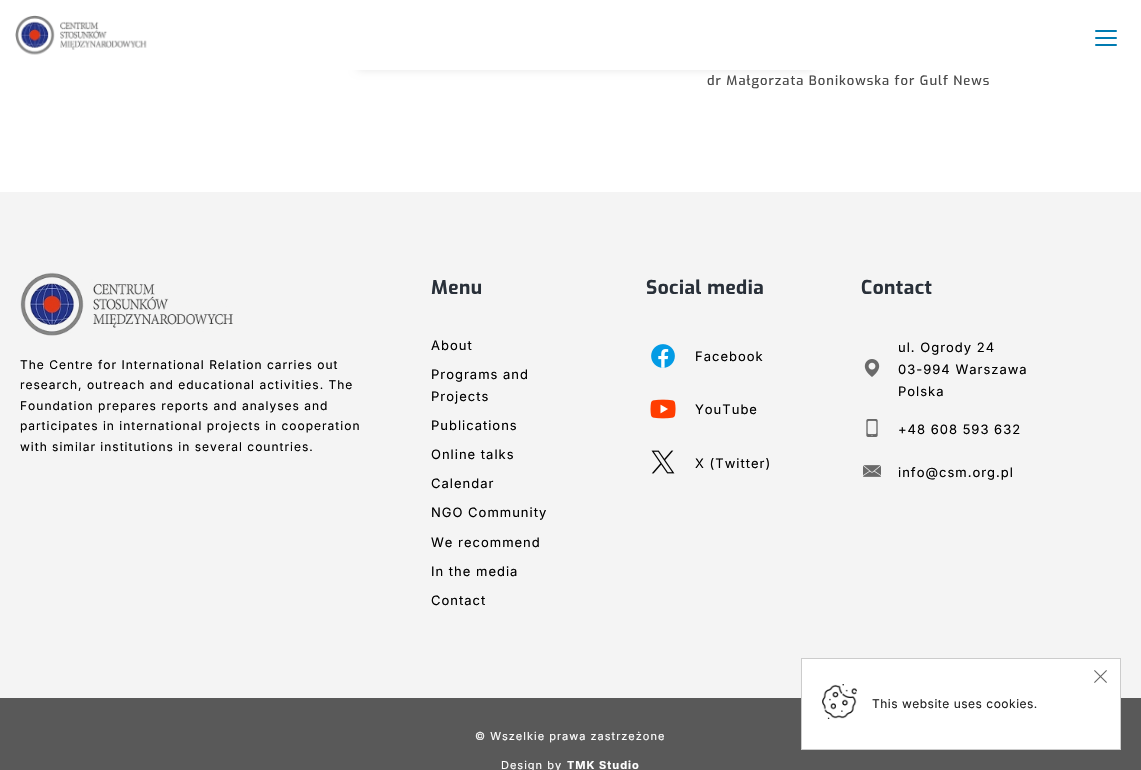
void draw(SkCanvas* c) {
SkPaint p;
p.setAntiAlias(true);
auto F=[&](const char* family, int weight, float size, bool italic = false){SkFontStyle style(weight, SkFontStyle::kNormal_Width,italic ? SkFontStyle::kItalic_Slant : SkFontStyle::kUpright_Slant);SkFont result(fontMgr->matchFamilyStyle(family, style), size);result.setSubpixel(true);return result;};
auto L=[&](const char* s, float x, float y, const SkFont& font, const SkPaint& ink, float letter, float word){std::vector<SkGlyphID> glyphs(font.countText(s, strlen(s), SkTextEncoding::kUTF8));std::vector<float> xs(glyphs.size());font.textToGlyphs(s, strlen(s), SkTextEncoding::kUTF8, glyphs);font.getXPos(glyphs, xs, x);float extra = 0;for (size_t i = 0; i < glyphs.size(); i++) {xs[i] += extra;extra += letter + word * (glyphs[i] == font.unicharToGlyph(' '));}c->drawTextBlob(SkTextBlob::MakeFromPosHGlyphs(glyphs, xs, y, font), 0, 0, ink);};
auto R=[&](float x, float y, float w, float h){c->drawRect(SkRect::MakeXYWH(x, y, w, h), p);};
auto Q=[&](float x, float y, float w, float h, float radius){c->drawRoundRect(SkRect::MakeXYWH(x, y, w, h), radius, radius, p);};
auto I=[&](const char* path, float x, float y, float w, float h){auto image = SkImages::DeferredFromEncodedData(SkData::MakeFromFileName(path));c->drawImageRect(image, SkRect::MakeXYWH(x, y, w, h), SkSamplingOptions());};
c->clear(0xffffffff);
I("1.png",15,15,132,40);
p.setColor(0xff007bb1);
Q(1095,30,22,2,1);
Q(1095,37,22,2,1);
Q(1095,44,22,2,1);
c->save();
c->clipRect(SkRect::MakeXYWH(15,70,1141,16));
p.setColor(0x1a000000);
p.setMaskFilter(SkMaskFilter::MakeBlur(kNormal_SkBlurStyle, 4));
c->drawRoundRect(SkRect::MakeXYWH(357,62,457,8),4,4,p);
p.setMaskFilter(nullptr);
c->restore();
auto f1 = F("Exo",500,13);
p.setColor(0xff4a4a4a);
L("dr Małgorzata Bonikowska for Gulf News",707,85,f1,p,1,0);
p.setColor(0xfff4f4f4);
R(0,192,1141,506);
I("2.png",20,272,214,64);
auto f2 = F("Inter",400,12);
p.setColor(0xff000000);
L("The Centre for International Relation carries out",20,369,f2,p,1,0);
L("research, outreach and educational activities. The",20,389,f2,p,1,0);
L("Foundation prepares reports and analyses and",20,410,f2,p,1,0);
L("participates in international projects in cooperation",20,430,f2,p,1,0);
L("with similar institutions in several countries.",20,451,f2,p,1,0);
auto f3 = F("Exo",700,19);
p.setColor(0xff293039);
L("Menu",431,294,f3,p,.5,0);
auto f4 = F("Inter",400,13);
p.setColor(0xff000000);
L("About",431,350,f4,p,1,0);
L("Programs and",431,379,f4,p,1,0);
L("Projects",431,401,f4,p,1,0);
L("Publications",431,430,f4,p,1,0);
L("Online talks",431,459,f4,p,1,0);
L("Calendar",431,488,f4,p,1,0);
L("NGO Community",431,517,f4,p,1,0);
L("We recommend",431,547,f4,p,1,0);
L("In the media",431,576,f4,p,1,0);
L("Contact",431,605,f4,p,1,0);
p.setColor(0xff293039);
L("Social media",646,294,f3,p,.5,0);
I("3.png",651,344,24,24);
p.setColor(0xff000000);
L("Facebook",695,361,f4,p,1,0);
I("4.png",650,399,26,20);
L("YouTube",695,414,f4,p,1,0);
I("5.png",651,450,24,24);
L("X (Twitter)",695,468,f4,p,1,0);
p.setColor(0xff293039);
L("Contact",861,294,f3,p,.5,0);
I("6.png",864,359,16,18);
p.setColor(0xff000000);
L("ul. Ogrody 24",898,352,f4,p,1,0);
L("03-994 Warszawa",898,374,f4,p,1,0);
L("Polska",898,396,f4,p,1,0);
I("7.png",866,419,12,18);
L("+48 608 593 632",898,434,f4,p,1,0);
I("8.png",863,465,18,12);
L("info@csm.org.pl",898,477,f4,p,1,0);
p.setColor(0xff595959);
R(0,698,1141,72);
auto f5 = F("Inter",400,11);
p.setColor(0xffffffff);
L("© Wszelkie prawa zastrzeżone",475,740,f5,p,1,0);
L("Design by",501,769,f5,p,1,0);
auto f6 = F("Inter",700,11);
L("TMK Studio",567,769,f6,p,1,0);
c->drawRect(SkRect::MakeXYWH(801.5,658.5,319,91),p);
p.setStroke(true);
p.setStrokeWidth(1);
p.setColor(0xffcccccc);
c->drawRect(SkRect::MakeXYWH(801.5,658.5,319,91),p);
I("9.png",1094,670,13,13);
I("10.png",822,684,35,35);
p.setStroke(false);
p.setColor(0xff222222);
L("This website uses cookies.",872,708,f2,p,.5,0);
}
